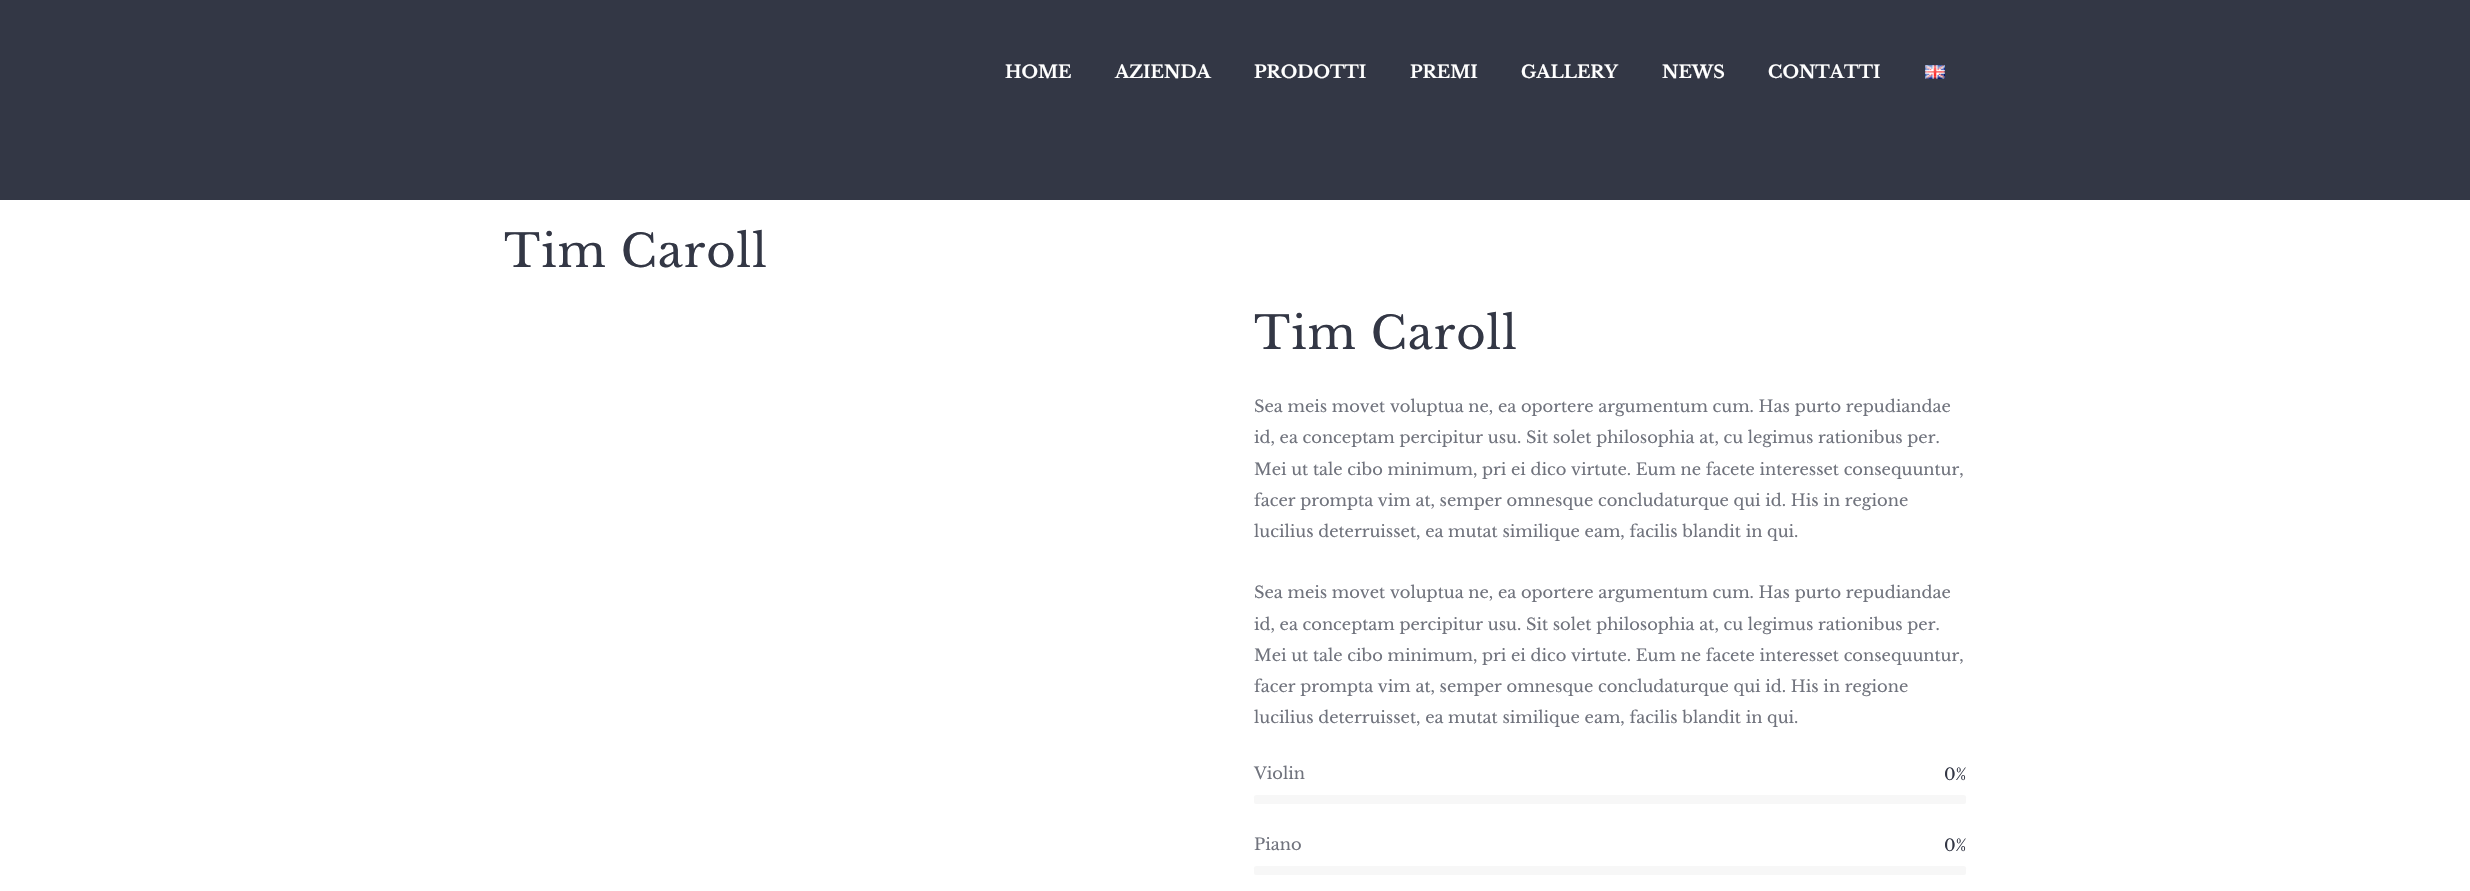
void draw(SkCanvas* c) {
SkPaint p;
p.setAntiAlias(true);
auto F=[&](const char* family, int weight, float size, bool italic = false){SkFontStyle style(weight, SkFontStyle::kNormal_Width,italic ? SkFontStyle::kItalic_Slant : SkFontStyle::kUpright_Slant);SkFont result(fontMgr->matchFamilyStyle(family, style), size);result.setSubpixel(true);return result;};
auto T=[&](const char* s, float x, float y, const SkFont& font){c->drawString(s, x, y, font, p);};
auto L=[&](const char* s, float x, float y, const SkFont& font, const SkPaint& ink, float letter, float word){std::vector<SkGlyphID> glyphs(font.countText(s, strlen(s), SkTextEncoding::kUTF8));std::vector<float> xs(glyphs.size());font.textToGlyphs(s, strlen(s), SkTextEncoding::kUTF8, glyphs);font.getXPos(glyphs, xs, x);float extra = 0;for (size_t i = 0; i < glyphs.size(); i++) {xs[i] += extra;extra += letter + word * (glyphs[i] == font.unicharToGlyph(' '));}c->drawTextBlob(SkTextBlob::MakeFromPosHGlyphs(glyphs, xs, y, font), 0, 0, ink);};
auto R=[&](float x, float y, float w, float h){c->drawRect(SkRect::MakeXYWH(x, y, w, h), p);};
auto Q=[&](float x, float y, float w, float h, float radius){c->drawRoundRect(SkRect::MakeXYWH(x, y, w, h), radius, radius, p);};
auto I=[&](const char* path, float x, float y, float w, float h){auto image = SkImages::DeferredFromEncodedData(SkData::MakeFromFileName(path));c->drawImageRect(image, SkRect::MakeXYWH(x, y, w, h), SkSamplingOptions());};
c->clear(0xffffffff);
p.setColor(0xff333745);
R(0,0,2470,200);
auto f1 = F("Libre Baskerville",700,17.5);
p.setColor(0xffffffff);
T("HOME",1005,78,f1);
T("AZIENDA",1115,78,f1);
T("PRODOTTI",1254,78,f1);
T("PREMI",1410,78,f1);
T("GALLERY",1521,78,f1);
T("NEWS",1662,78,f1);
T("CONTATTI",1768,78,f1);
I("1.png",1925,65,20,14);
auto f2 = F("Libre Baskerville",400,45);
p.setColor(0xff333745);
L("Tim Caroll",504,267,f2,p,1,0);
L("Tim Caroll",1254,349,f2,p,1,0);
auto f3 = F("Libre Baskerville",400,16.25);
p.setColor(0xff70737d);
T("Sea meis movet voluptua ne, ea oportere argumentum cum. Has purto repudiandae",1254,412,f3);
T("id, ea conceptam percipitur usu. Sit solet philosophia at, cu legimus rationibus per.",1254,443,f3);
T("Mei ut tale cibo minimum, pri ei dico virtute. Eum ne facete interesset consequuntur,",1254,475,f3);
T("facer prompta vim at, semper omnesque concludaturque qui id. His in regione",1254,506,f3);
T("lucilius deterruisset, ea mutat similique eam, facilis blandit in qui.",1254,537,f3);
T("Sea meis movet voluptua ne, ea oportere argumentum cum. Has purto repudiandae",1254,598,f3);
T("id, ea conceptam percipitur usu. Sit solet philosophia at, cu legimus rationibus per.",1254,630,f3);
T("Mei ut tale cibo minimum, pri ei dico virtute. Eum ne facete interesset consequuntur,",1254,661,f3);
T("facer prompta vim at, semper omnesque concludaturque qui id. His in regione",1254,692,f3);
T("lucilius deterruisset, ea mutat similique eam, facilis blandit in qui.",1254,723,f3);
T("Violin",1254,779,f3);
p.setColor(0xfff7f7f7);
Q(1254,795,712,9,2.5);
p.setColor(0xff333745);
T("0%",1944,780,f3);
p.setColor(0xff70737d);
T("Piano",1254,850,f3);
p.setColor(0xfff7f7f7);
Q(1254,866,712,9,2.5);
p.setColor(0xff333745);
T("0%",1944,851,f3);
}
